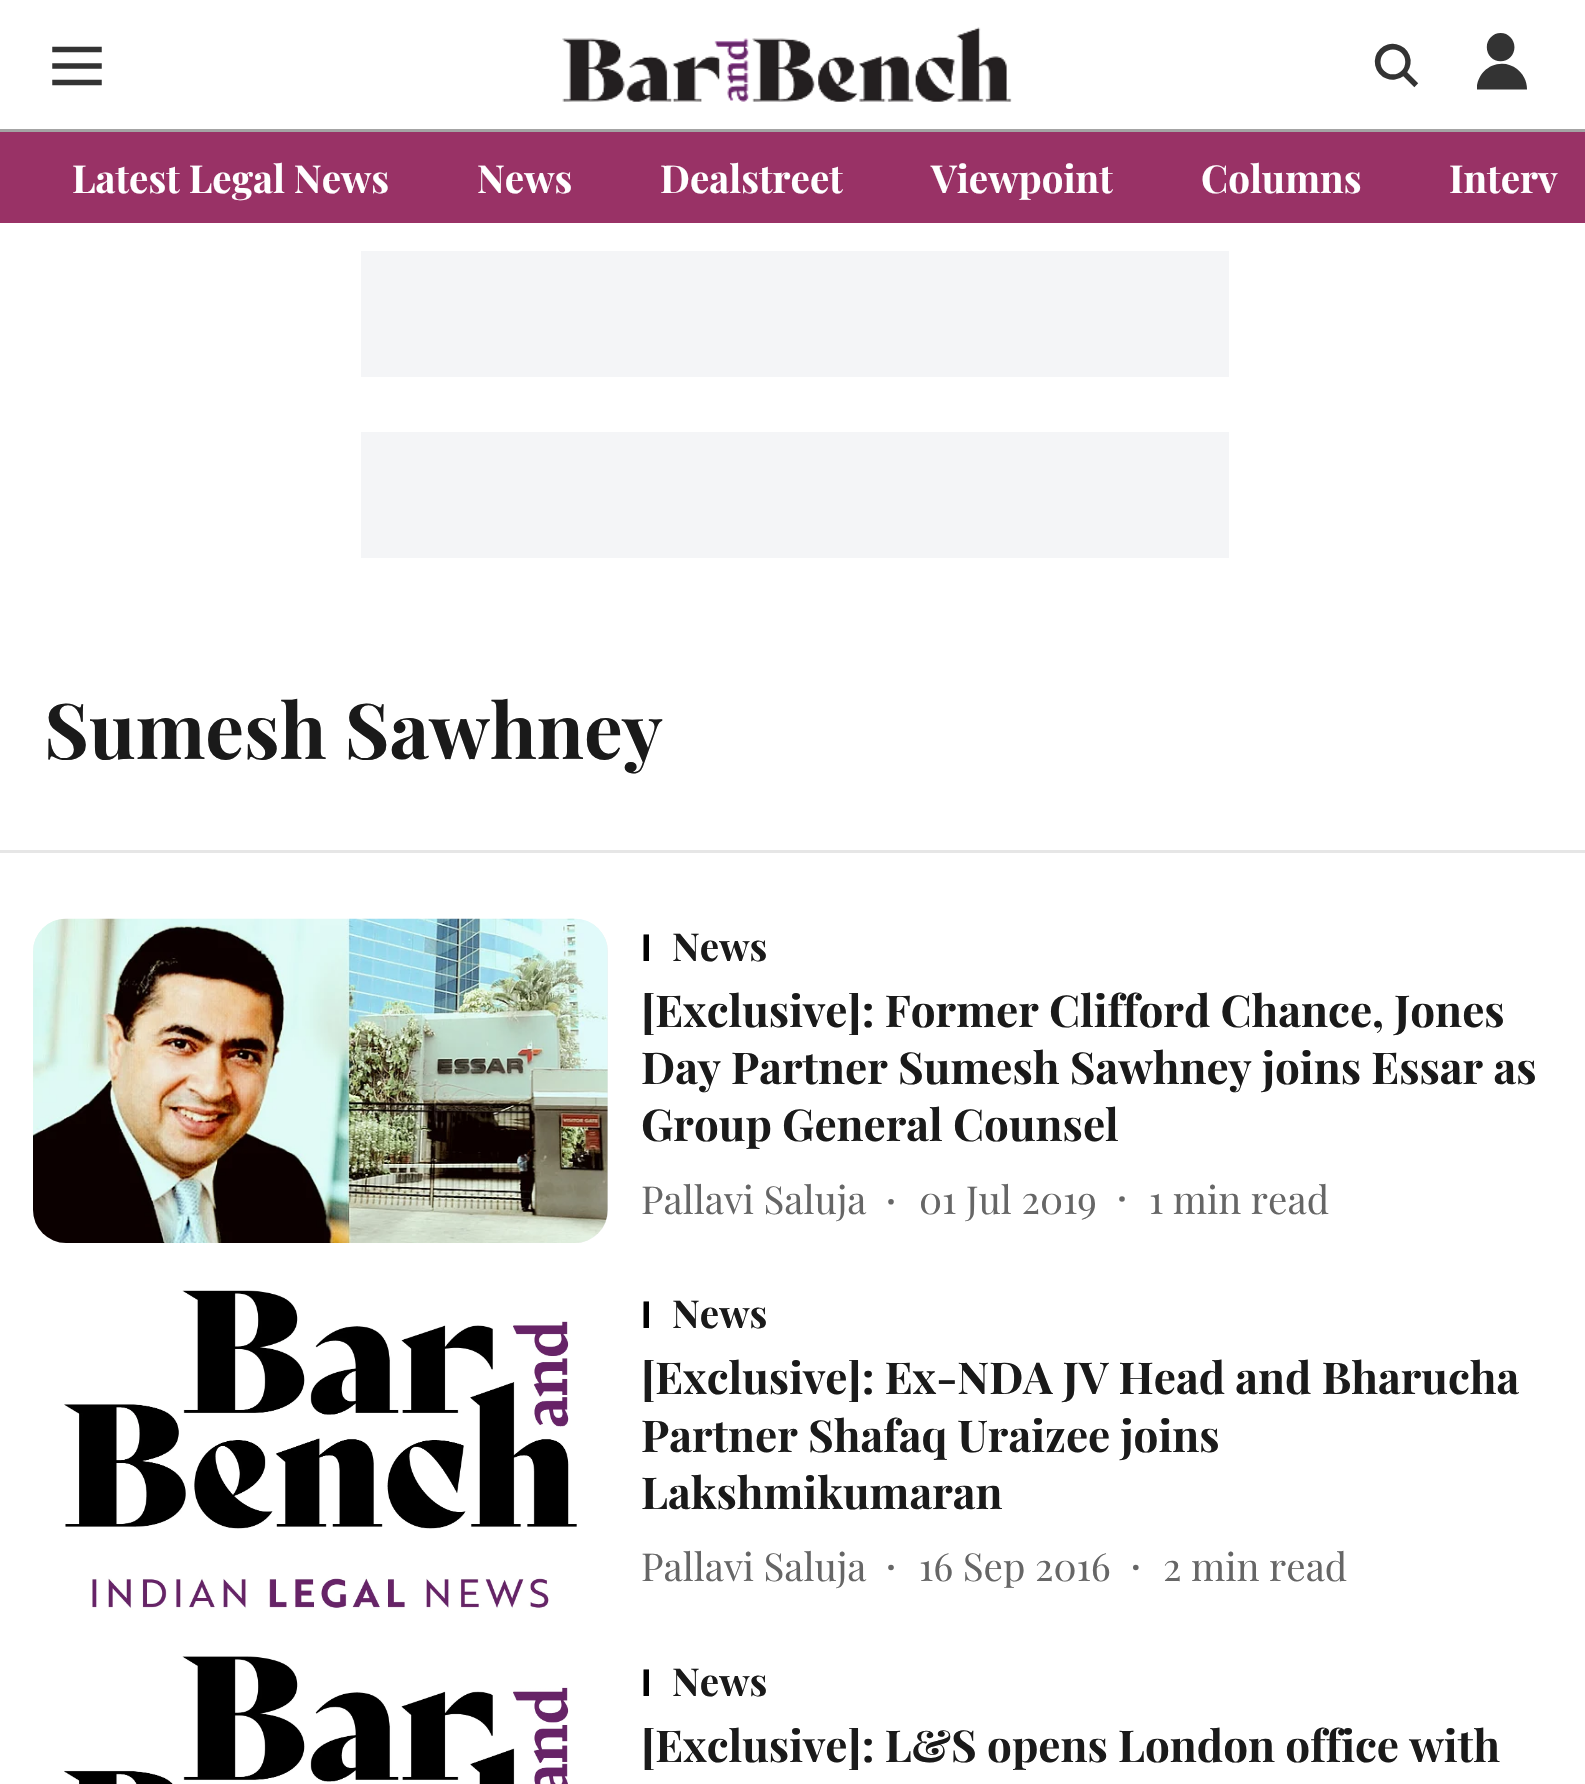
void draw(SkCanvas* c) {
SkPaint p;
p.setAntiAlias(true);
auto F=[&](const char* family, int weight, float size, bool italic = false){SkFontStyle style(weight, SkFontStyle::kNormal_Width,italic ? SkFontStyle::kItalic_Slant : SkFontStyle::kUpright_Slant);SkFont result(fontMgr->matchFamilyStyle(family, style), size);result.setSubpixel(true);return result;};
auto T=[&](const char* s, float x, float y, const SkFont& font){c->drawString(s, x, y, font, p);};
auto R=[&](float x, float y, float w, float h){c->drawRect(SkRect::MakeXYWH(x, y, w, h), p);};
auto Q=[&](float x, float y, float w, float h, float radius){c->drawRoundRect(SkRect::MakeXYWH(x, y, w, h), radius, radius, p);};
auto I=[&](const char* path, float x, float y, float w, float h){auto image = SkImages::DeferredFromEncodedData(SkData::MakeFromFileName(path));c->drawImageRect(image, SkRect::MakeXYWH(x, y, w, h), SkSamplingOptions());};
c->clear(0xffffffff);
p.setColor(0xffa4a4a4);
R(0,129,1585,3);
I("1.png",52,46,50,40);
I("2.png",562,27,450,75);
I("3.png",1374,43,45,45);
I("4.png",1477,33,50,57);
p.setColor(0xff993266);
R(0,132,1585,91);
auto f1 = F("Playfair Display",700,38.5);
p.setColor(0xffffffff);
T("Latest Legal News",72,193,f1);
T("News",477,193,f1);
T("Dealstreet",660,193,f1);
T("Viewpoint",931,193,f1);
T("Columns",1201,193,f1);
T("Interv",1449,193,f1);
p.setColor(0xfff4f5f7);
R(361,251,868,126);
R(361,432,868,126);
p.setColor(0xffe6e6e6);
R(0,850,1585,3);
auto f2 = F("Playfair Display",700,77);
p.setColor(0xff1a1a1a);
T("Sumesh Sawhney",44,759,f2);
p.setColor(0xfff0f0f0);
Q(33,919,575,324,33);
I("5.png",33,918,575,325);
c->save();
c->clipRect(SkRect::MakeXYWH(641,919,8,52));
auto f3 = F("Liberation Sans",700,38.5);
p.setColor(0xff000000);
T("I",641,961,f3);
c->restore();
p.setColor(0xff1a1a1a);
T("News",672,961,f1);
auto f4 = F("Playfair Display",700,44);
T("[Exclusive]: Former Clifford Chance, Jones",641,1027,f4);
T("Day Partner Sumesh Sawhney joins Essar as",641,1084,f4);
T("Group General Counsel",641,1141,f4);
auto f5 = F("Playfair Display",400,38.5);
p.setColor(0xff666666);
T("Pallavi Saluja",641,1214,f5);
c->drawCircle(891,1201.8,2.8,p);
T("01 Jul 2019",919,1214,f5);
c->drawCircle(1122,1199,2.8,p);
T("1 min read",1149,1214,f5);
I("6.png",64,1290,513,320);
c->save();
c->clipRect(SkRect::MakeXYWH(641,1287,8,52));
p.setColor(0xff000000);
T("I",641,1328,f3);
c->restore();
p.setColor(0xff1a1a1a);
T("News",672,1328,f1);
T("[Exclusive]: Ex-NDA JV Head and Bharucha",641,1394,f4);
T("Partner Shafaq Uraizee joins",641,1452,f4);
T("Lakshmikumaran",641,1509,f4);
p.setColor(0xff666666);
T("Pallavi Saluja",641,1581,f5);
c->drawCircle(891,1567.5,2.8,p);
T("16 Sep 2016",919,1581,f5);
c->drawCircle(1135.8,1567.5,2.8,p);
T("2 min read",1163,1581,f5);
I("7.png",64,1656,505,128);
c->save();
c->clipRect(SkRect::MakeXYWH(641,1656,8,52));
p.setColor(0xff000000);
T("I",641,1696,f3);
c->restore();
p.setColor(0xff1a1a1a);
T("News",672,1696,f1);
T("[Exclusive]: L&S opens London office with",641,1762,f4);
}
